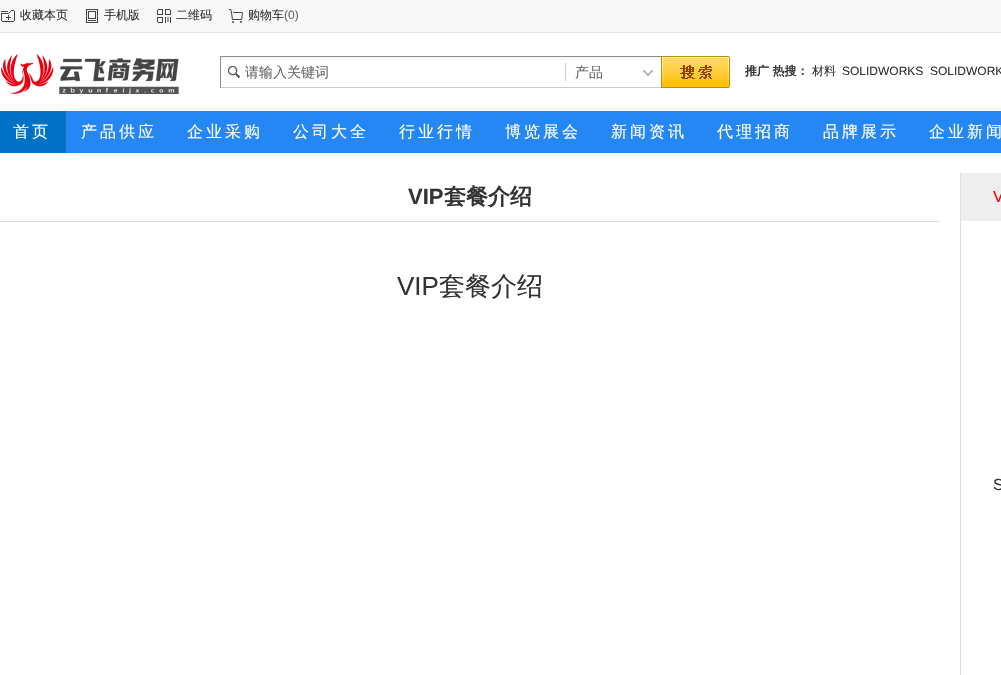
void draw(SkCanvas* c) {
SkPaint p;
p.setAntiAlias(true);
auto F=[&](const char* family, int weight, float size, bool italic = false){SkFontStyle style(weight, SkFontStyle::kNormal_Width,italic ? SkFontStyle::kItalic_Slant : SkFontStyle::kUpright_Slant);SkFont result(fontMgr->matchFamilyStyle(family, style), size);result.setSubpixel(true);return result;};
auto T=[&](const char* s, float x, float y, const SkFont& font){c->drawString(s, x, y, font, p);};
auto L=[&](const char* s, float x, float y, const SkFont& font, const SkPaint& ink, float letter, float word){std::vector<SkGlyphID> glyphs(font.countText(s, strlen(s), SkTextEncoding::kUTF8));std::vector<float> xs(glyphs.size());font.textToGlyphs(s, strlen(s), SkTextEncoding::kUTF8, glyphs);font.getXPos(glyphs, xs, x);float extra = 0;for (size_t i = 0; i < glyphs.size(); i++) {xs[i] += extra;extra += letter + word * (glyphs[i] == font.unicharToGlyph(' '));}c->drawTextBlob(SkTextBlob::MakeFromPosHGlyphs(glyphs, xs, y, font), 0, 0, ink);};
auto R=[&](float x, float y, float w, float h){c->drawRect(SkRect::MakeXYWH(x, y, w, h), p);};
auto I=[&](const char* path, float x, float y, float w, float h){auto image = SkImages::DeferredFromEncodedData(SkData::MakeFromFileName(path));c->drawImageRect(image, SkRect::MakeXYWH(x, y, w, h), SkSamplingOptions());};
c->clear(0xffffffff);
p.setColor(0xfff8f8f8);
R(0,0,1001,32);
p.setColor(0xffe5e5e5);
R(0,32,1001,1);
I("1.png",1,10,14,12);
auto f1 = F("WenQuanYi Zen Hei",500,12);
p.setColor(0xff333333);
T("收藏本页",20,19,f1);
I("2.png",86,9,12,14);
T("手机版",104,19,f1);
I("3.png",157,9,14,14);
T("二维码",176,19,f1);
I("4.png",229,9,14,14);
T("购物车",248,19,f1);
auto f2 = F("Liberation Sans",400,12);
p.setColor(0xff666666);
T("(0)",284,19,f2);
I("5.png",1,54,178,40);
I("6.png",220,56,510,32);
auto f3 = F("WenQuanYi Zen Hei",500,14);
T("请输入关键词",245,77,f3);
T("产品",575,77,f3);
auto f4 = F("WenQuanYi Zen Hei",700,12);
p.setColor(0xff333333);
T("推广 热搜：",745,75,f4);
T("材料",812,75,f1);
T("SOLIDWORKS",842,75,f2);
T("SOLIDWORK",930,75,f2);
p.setColor(0xff2587f4);
R(66,111,935,42);
p.setColor(0xff0072c6);
R(0,111,66,42);
auto f5 = F("WenQuanYi Zen Hei",500,16);
p.setColor(0xffffffff);
L("首页",13,137,f5,p,3,0);
L("产品供应",81,137,f5,p,3,0);
L("企业采购",187,137,f5,p,3,0);
L("公司大全",293,137,f5,p,3,0);
L("行业行情",399,137,f5,p,3,0);
L("博览展会",505,137,f5,p,3,0);
L("新闻资讯",611,137,f5,p,3,0);
L("代理招商",717,137,f5,p,3,0);
L("品牌展示",823,137,f5,p,3,0);
L("企业新闻",929,137,f5,p,3,0);
p.setColor(0xffdddddd);
R(960,173,1,502);
R(0,221,940,1);
auto f6 = F("Liberation Sans",700,22);
p.setColor(0xff333333);
T("VIP",408,204,f6);
auto f7 = F("WenQuanYi Zen Hei",700,22);
T("套餐介绍",444,204,f7);
auto f8 = F("Liberation Sans",400,26);
T("VIP",397,295,f8);
auto f9 = F("WenQuanYi Zen Hei",500,26);
T("套餐介绍",439,295,f9);
p.setColor(0xffeeeeee);
R(961,173,40,48);
auto f10 = F("Liberation Sans",400,16);
p.setColor(0xffff0000);
T("V",993,202,f10);
p.setColor(0xff333333);
T("S",993,490,f10);
}
